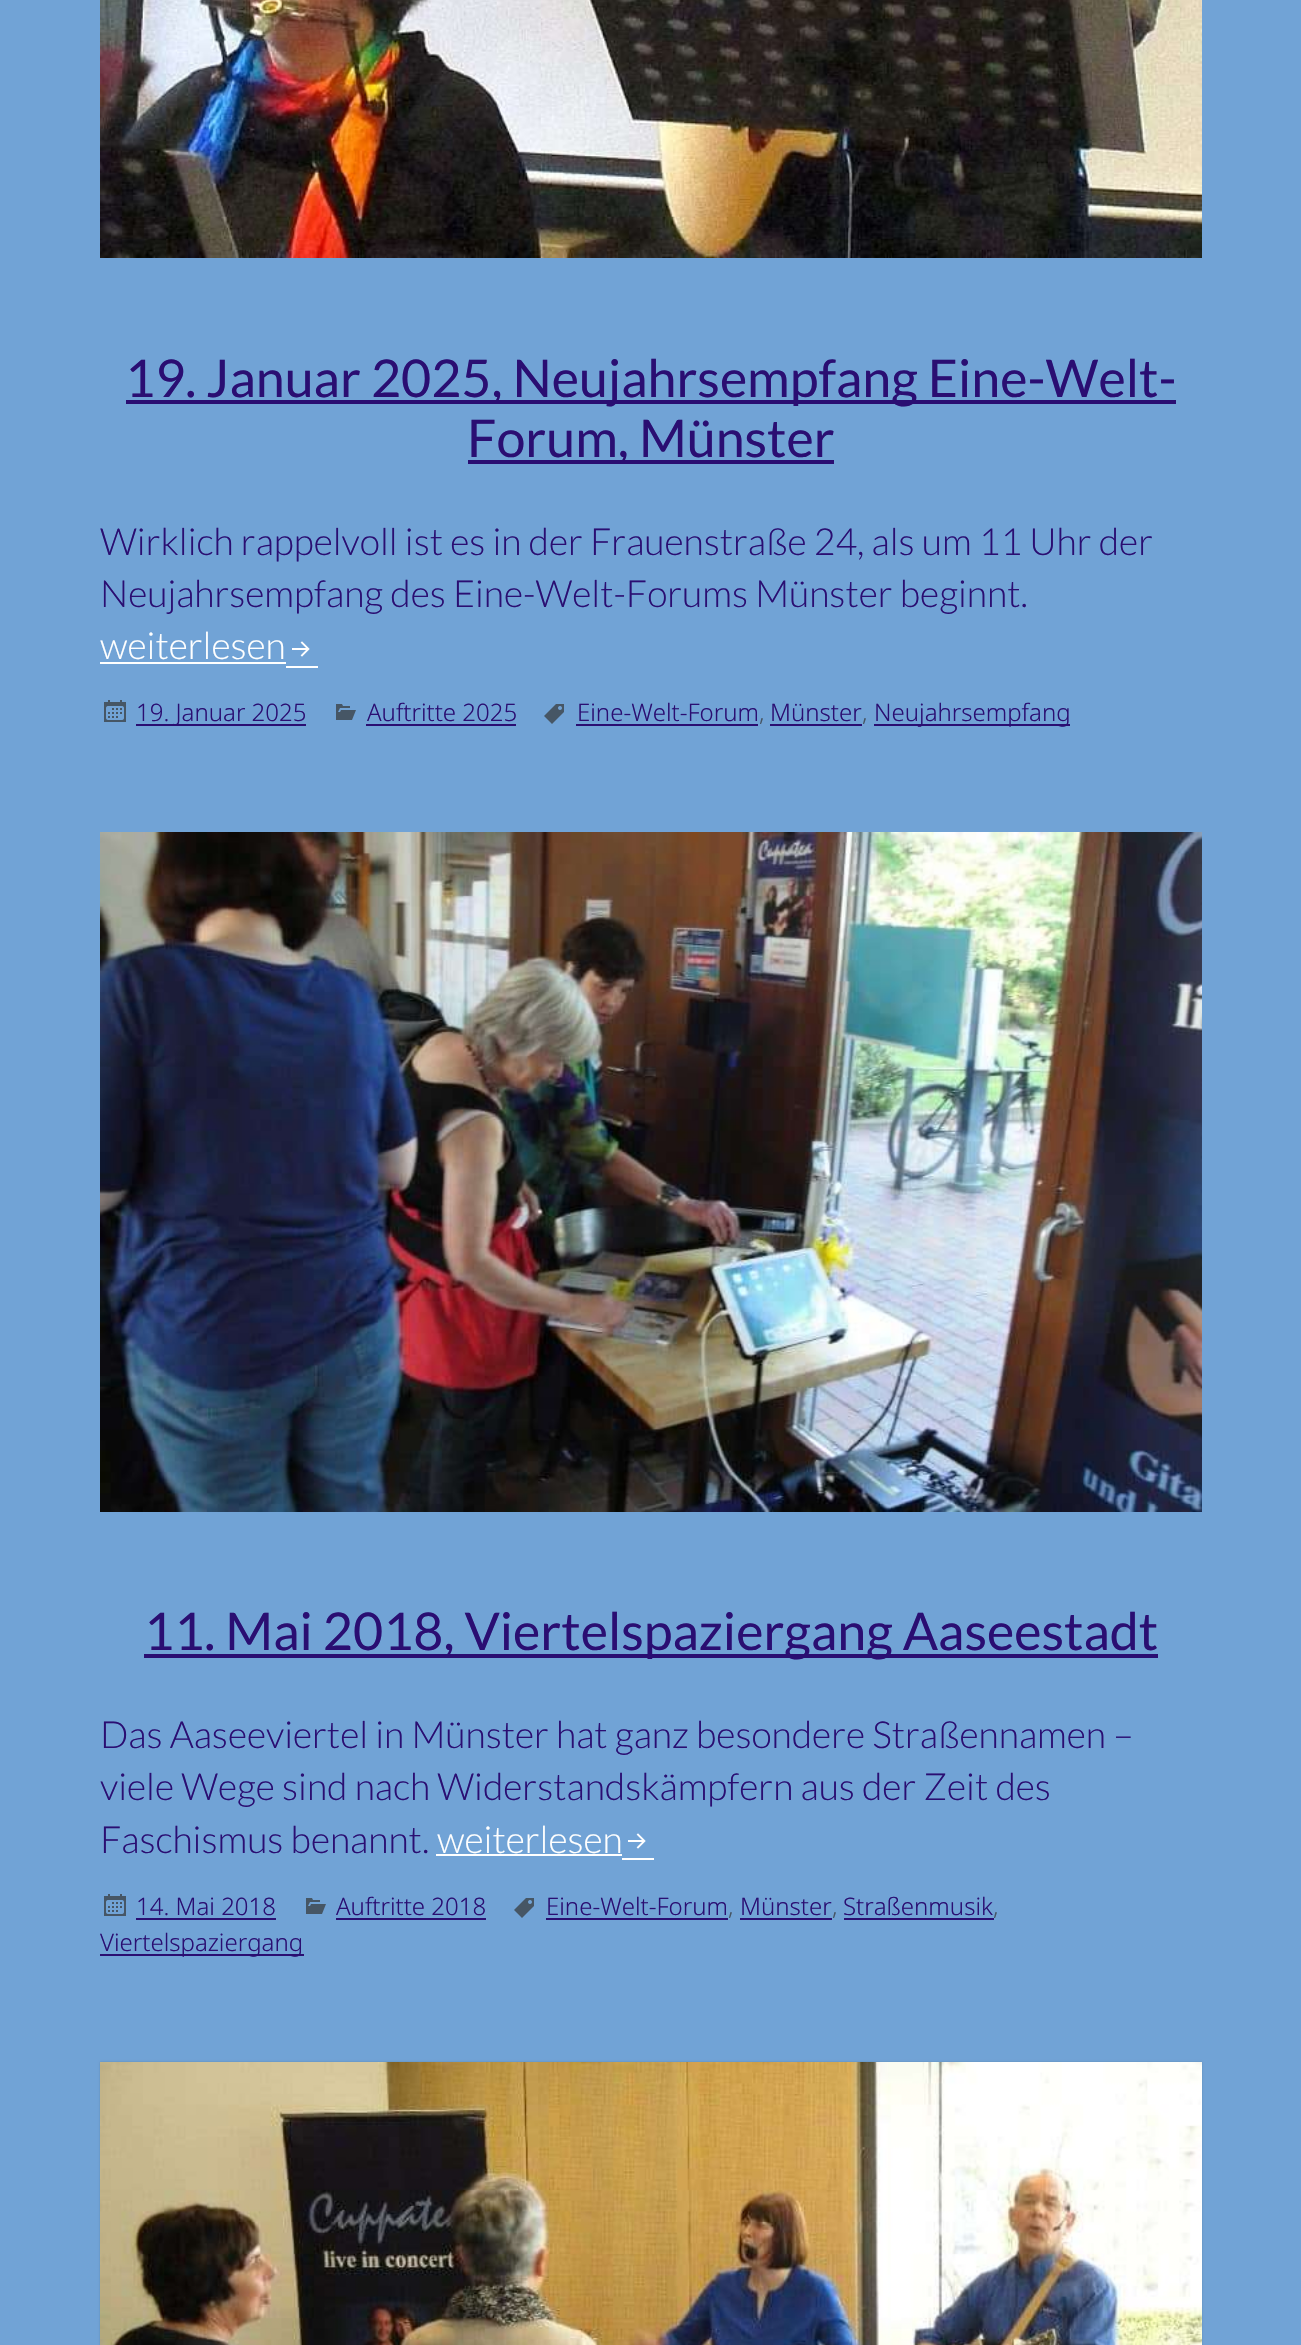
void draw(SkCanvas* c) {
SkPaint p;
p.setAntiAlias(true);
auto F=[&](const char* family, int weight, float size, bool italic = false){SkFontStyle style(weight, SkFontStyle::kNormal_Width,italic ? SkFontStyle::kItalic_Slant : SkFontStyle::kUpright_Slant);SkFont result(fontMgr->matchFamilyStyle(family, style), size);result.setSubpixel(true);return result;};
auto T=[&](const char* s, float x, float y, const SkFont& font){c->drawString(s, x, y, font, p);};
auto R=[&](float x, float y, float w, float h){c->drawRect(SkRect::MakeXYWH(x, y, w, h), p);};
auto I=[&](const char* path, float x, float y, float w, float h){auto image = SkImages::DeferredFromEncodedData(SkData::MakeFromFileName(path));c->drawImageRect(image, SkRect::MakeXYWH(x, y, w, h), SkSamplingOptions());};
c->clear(0xff71a3d6);
I("1.png",100,0,1102,258);
p.setColor(0xff2a0e72);
R(126,400,1050,4);
auto f1 = F("Lato",400,52);
T("19. Januar 2025, Neujahrsempfang Eine-Welt-",125,397,f1);
R(468,460,366,4);
T("Forum, Münster",467,457,f1);
auto f2 = F("Lato",300,37.3);
T("Wirklich rappelvoll ist es in der Frauenstraße 24, als um 11 Uhr der",100,555,f2);
T("Neujahrsempfang des Eine-Welt-Forums Münster beginnt.",100,607,f2);
p.setColor(0xffffffff);
T("weiterlesen",100,659,f2);
R(100,662,186,2);
R(286,666,32,2);
I("2.png",292,641,18,16);
I("3.png",104,700,22,22);
p.setColor(0xff2a0e72);
R(136,724,170,2);
auto f3 = F("Noto Sans",300,24);
T("19. Januar 2025",136,721,f3);
I("4.png",336,704,20,16);
T("Auftritte 2025",367,721,f3);
R(366,724,150,2);
I("5.png",544,704,20,20);
T("Eine-Welt-Forum",577,721,f3);
R(576,724,182,2);
p.setColor(0xff465564);
T(",",759,721,f3);
p.setColor(0xff2a0e72);
T("Münster",770,721,f3);
R(770,724,92,2);
p.setColor(0xff465564);
T(",",862,721,f3);
p.setColor(0xff2a0e72);
R(874,724,196,2);
T("Neujahrsempfang",874,721,f3);
I("6.png",100,832,1102,680);
R(144,1654,1014,4);
T("11. Mai 2018, Viertelspaziergang Aaseestadt",144,1650,f1);
T("Das Aaseeviertel in Münster hat ganz besondere Straßennamen –",100,1748,f2);
T("viele Wege sind nach Widerstandskämpfern aus der Zeit des",100,1800,f2);
T("Faschismus benannt.",100,1853,f2);
p.setColor(0xffffffff);
T("weiterlesen",437,1853,f2);
R(436,1854,186,2);
R(622,1858,32,2);
I("2.png",628,1833,18,16);
I("5.png",514,1898,20,20);
p.setColor(0xff2a0e72);
T("Eine-Welt-Forum",546,1915,f3);
R(546,1918,182,2);
p.setColor(0xff465564);
T(",",728,1915,f3);
p.setColor(0xff2a0e72);
T("Münster",740,1915,f3);
R(740,1918,92,2);
p.setColor(0xff465564);
T(",",832,1915,f3);
p.setColor(0xff2a0e72);
T("Straßenmusik",843,1915,f3);
R(844,1918,150,2);
p.setColor(0xff465564);
T(",",993,1915,f3);
p.setColor(0xff2a0e72);
R(100,1954,204,2);
T("Viertelspaziergang",100,1951,f3);
I("3.png",104,1894,22,22);
T("14. Mai 2018",136,1915,f3);
R(136,1918,140,2);
I("4.png",306,1898,20,16);
T("Auftritte 2018",336,1915,f3);
R(336,1918,150,2);
p.setColor(0x26000000);
p.setMaskFilter(SkMaskFilter::MakeBlur(kNormal_SkBlurStyle, 1));
c->drawRect(SkRect::MakeXYWH(100,2062,1102,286),p);
p.setMaskFilter(nullptr);
I("7.png",100,2062,1102,283);
}
